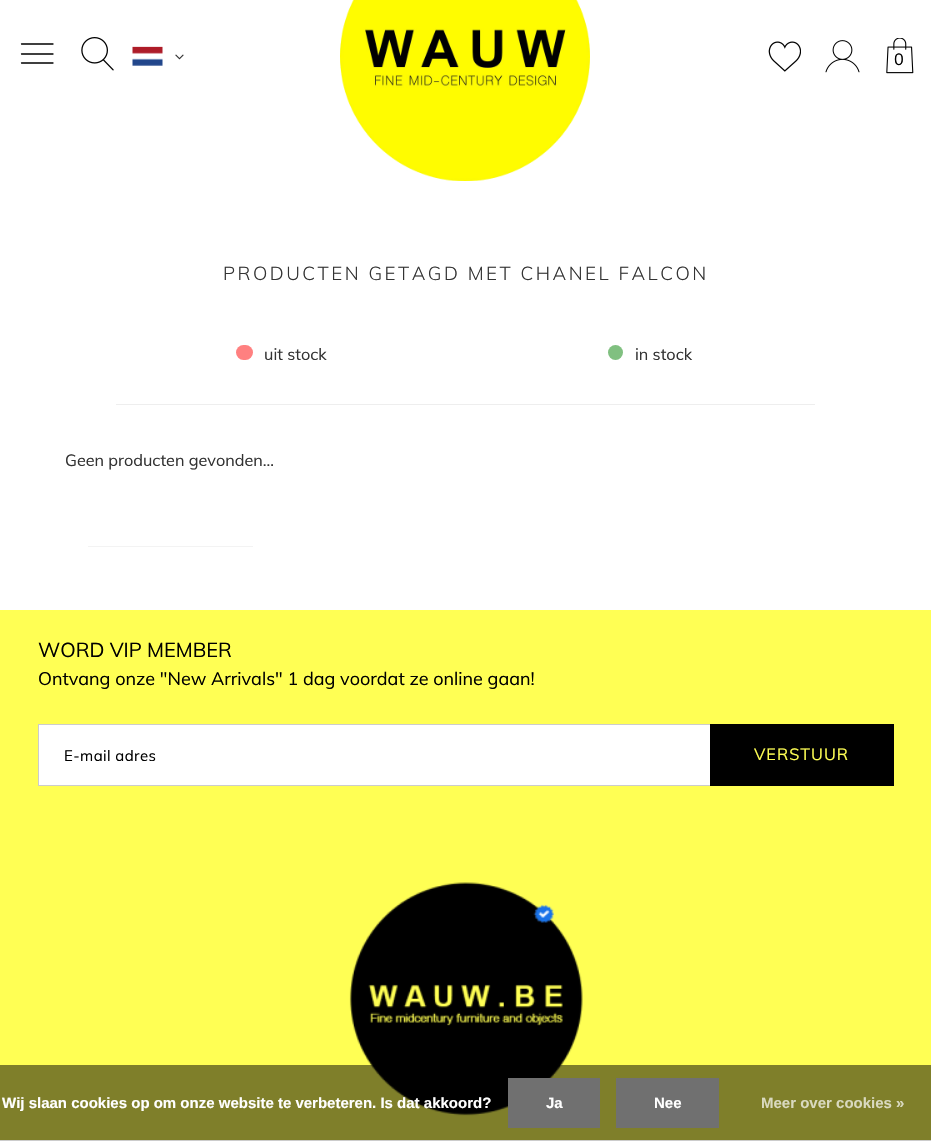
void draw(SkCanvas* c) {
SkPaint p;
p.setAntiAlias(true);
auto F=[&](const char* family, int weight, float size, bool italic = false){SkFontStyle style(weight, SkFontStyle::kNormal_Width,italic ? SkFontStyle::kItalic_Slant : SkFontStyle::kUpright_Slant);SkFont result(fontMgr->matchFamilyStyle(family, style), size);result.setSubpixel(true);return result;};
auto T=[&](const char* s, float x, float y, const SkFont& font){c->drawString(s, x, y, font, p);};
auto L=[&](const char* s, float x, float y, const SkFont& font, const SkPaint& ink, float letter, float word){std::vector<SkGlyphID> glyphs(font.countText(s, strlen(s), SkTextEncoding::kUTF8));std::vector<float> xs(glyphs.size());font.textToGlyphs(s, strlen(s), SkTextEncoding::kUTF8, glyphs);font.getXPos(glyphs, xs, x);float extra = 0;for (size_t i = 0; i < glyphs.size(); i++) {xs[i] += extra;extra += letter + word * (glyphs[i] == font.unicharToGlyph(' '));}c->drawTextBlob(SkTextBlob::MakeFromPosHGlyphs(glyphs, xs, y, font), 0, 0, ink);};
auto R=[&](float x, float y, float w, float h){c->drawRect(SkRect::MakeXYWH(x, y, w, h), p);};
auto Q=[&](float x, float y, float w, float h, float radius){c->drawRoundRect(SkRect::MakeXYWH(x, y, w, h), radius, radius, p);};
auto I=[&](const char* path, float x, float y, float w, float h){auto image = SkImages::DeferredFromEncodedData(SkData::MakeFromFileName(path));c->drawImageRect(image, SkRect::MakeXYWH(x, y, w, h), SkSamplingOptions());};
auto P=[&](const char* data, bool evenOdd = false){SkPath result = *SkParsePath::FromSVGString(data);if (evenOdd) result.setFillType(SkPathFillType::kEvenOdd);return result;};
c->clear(0xffffffff);
p.setStroke(true);
p.setStrokeWidth(1.3);
p.setStrokeCap(SkPaint::kRound_Cap);
p.setColor(0xff000000);
c->drawPath(P("M21.5 63h31.5m-31.5-9h31.5m-31.5-10h31.5"),p);
I("1.png",81,37,33,34);
I("2.png",132,46,31,20);
I("3.png",175,54,9,6);
I("4.png",340,0,250,181);
I("5.png",768,41,33,31);
I("6.png",825,40,35,33);
I("7.png",886,38,28,36);
auto f1 = F("Muli",400,16.25);
p.setStroke(false);
T("0",894,65,f1);
auto f2 = F("Muli",300,18.75);
p.setColor(0xff333333);
L("PRODUCTEN GETAGD MET CHANEL FALCON",223,280,f2,p,2.5,0);
p.setColor(0xffff8080);
Q(236,345,17,15,7.5);
p.setColor(0xff333333);
T("uit stock",264,360,f1);
p.setColor(0xff80c080);
c->drawCircle(615.5,352.5,7.5,p);
p.setColor(0xff333333);
T("in stock",635,360,f1);
p.setColor(0xffeeeeee);
R(116,404,699,1);
p.setColor(0xff333333);
T("Geen producten gevonden...",65,466,f1);
p.setColor(0xfff3f3f3);
R(88,546,165,1);
p.setColor(0xffffff54);
R(0,610,931,530);
auto f3 = F("Muli",400,20);
p.setColor(0xff000000);
T("WORD VIP MEMBER",38,657,f3);
auto f4 = F("Muli",400,18);
T("Ontvang onze \"New Arrivals\" 1 dag voordat ze online gaan!",38,685,f4);
p.setColor(0xffffffff);
R(39,725,671,60);
p.setStroke(true);
p.setStrokeWidth(1);
p.setStrokeCap(SkPaint::kButt_Cap);
p.setColor(0xffcccccc);
c->drawRect(SkRect::MakeXYWH(38.5,724.5,855,61),p);
auto f5 = F("Muli",400,15);
p.setStroke(false);
p.setColor(0xff000000);
L("E-mail adres",64,761,f5,p,.4,0);
R(710,724,184,62);
p.setColor(0xffffff54);
L("VERSTUUR",754,760,f1,p,1,0);
I("8.png",349,882,234,234);
p.setColor(0x80000000);
R(0,1065,931,75);
p.setColor(0xffcccccc);
R(0,1140,931,1);
auto f6 = F("Liberation Sans",700,15);
p.setColor(0xffffffff);
T("Wij slaan cookies op om onze website te verbeteren. Is dat akkoord?",2,1108,f6);
p.setColor(0xff707070);
R(508,1078,92,50);
p.setColor(0xffffffff);
T("Ja",546,1108,f6);
p.setColor(0xff707070);
R(616,1078,103,50);
p.setColor(0xffffffff);
T("Nee",654,1108,f6);
p.setColor(0xffd9d9bf);
T("Meer over cookies »",761,1108,f6);
}
